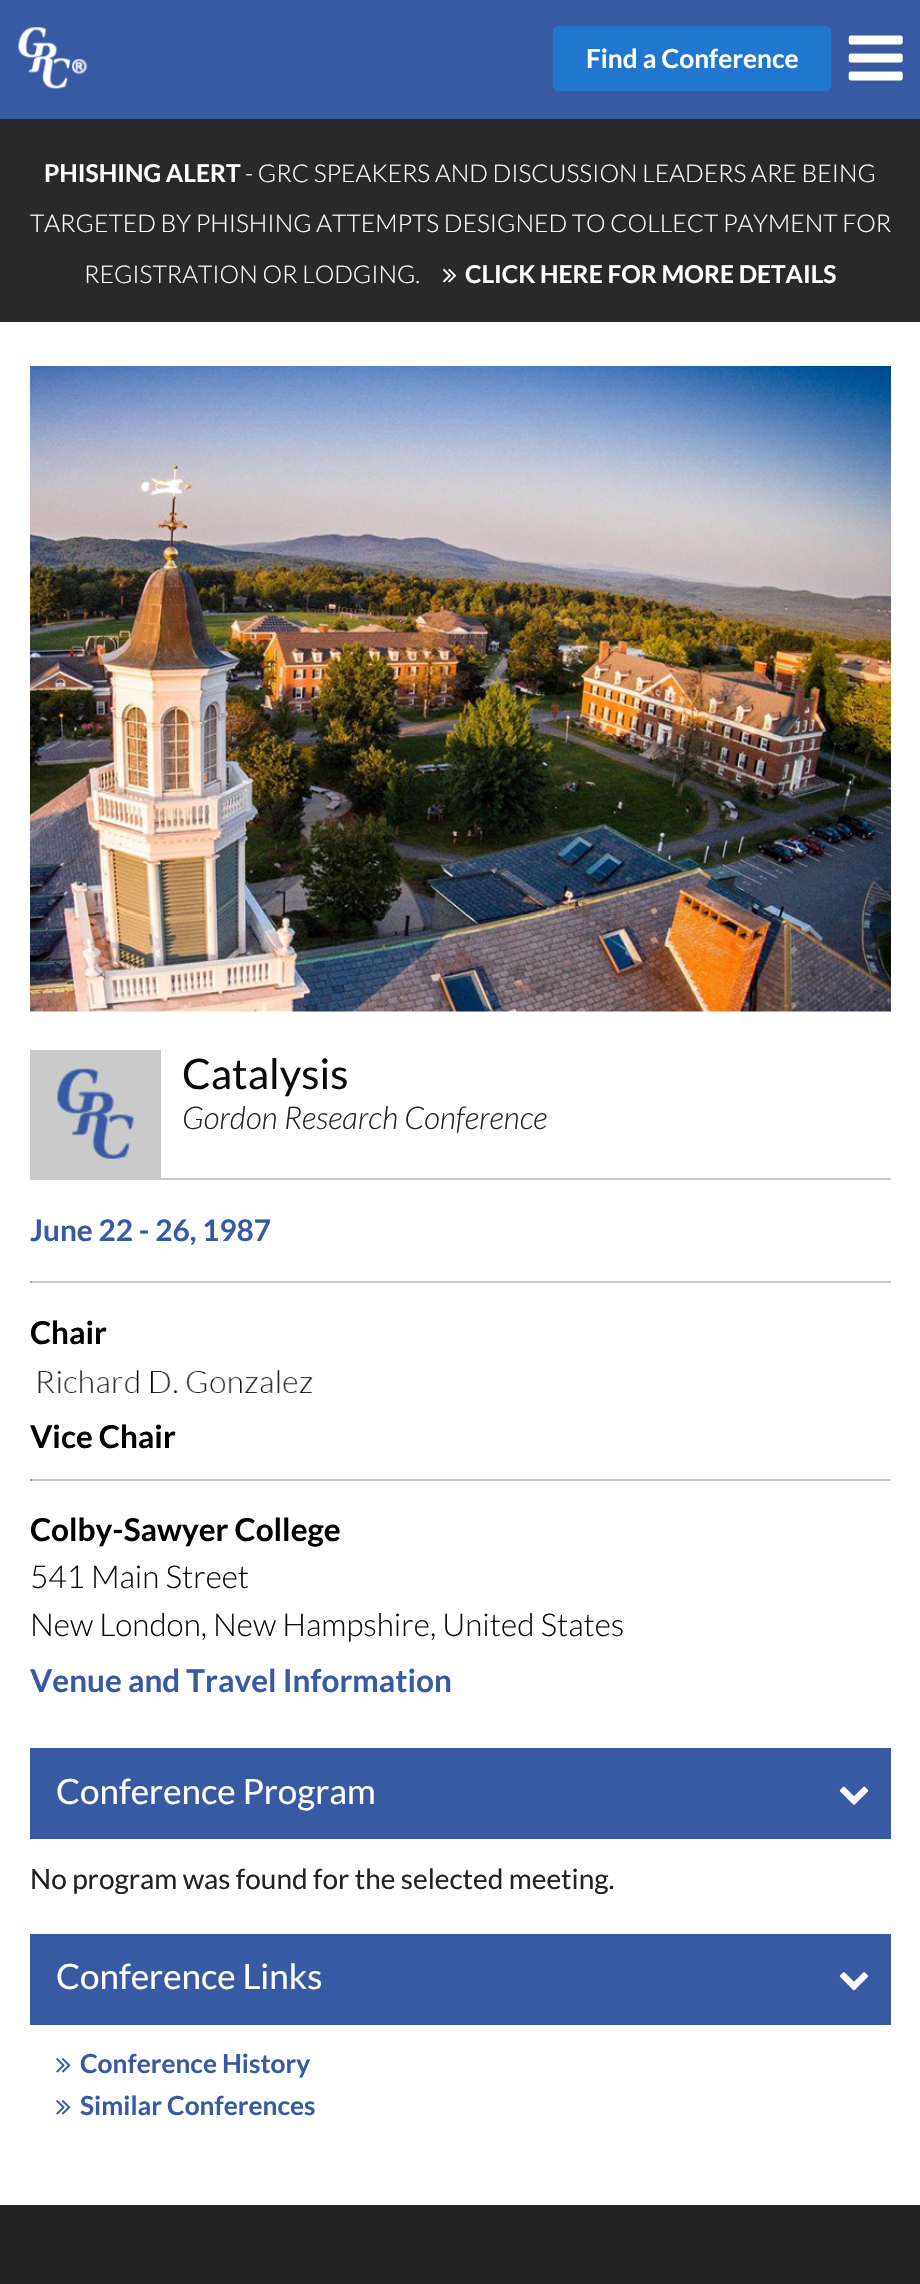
void draw(SkCanvas* c) {
SkPaint p;
p.setAntiAlias(true);
auto F=[&](const char* family, int weight, float size, bool italic = false){SkFontStyle style(weight, SkFontStyle::kNormal_Width,italic ? SkFontStyle::kItalic_Slant : SkFontStyle::kUpright_Slant);SkFont result(fontMgr->matchFamilyStyle(family, style), size);result.setSubpixel(true);return result;};
auto T=[&](const char* s, float x, float y, const SkFont& font){c->drawString(s, x, y, font, p);};
auto R=[&](float x, float y, float w, float h){c->drawRect(SkRect::MakeXYWH(x, y, w, h), p);};
auto Q=[&](float x, float y, float w, float h, float radius){c->drawRoundRect(SkRect::MakeXYWH(x, y, w, h), radius, radius, p);};
auto I=[&](const char* path, float x, float y, float w, float h){auto image = SkImages::DeferredFromEncodedData(SkData::MakeFromFileName(path));c->drawImageRect(image, SkRect::MakeXYWH(x, y, w, h), SkSamplingOptions());};
c->clear(0xffffffff);
p.setColor(0xff385aa3);
R(0,0,920,119);
I("1.png",18,27,70,62);
p.setColor(0xff2176cd);
Q(553,26,278,65,5);
auto f1 = F("Lato",700,26.25);
p.setColor(0xffffffff);
T("Find a Conference",586,68,f1);
I("2.png",848,35,55,46);
p.setColor(0xff292929);
R(0,119,920,203);
auto f2 = F("Lato",700,24.5);
p.setColor(0xffffffff);
T("PHISHING ALERT",44,182,f2);
auto f3 = F("Lato",300,24.5);
T("- GRC SPEAKERS AND DISCUSSION LEADERS ARE BEING",245,182,f3);
T("TARGETED BY PHISHING ATTEMPTS DESIGNED TO COLLECT PAYMENT FOR",30,232,f3);
T("REGISTRATION OR LODGING.",84,283,f3);
I("3.png",443,268,14,15);
T("CLICK HERE FOR MORE DETAILS",465,283,f2);
I("4.png",30,366,861,646);
p.setColor(0xffcacaca);
R(30,1178,861,2);
R(30,1050,131,128);
I("5.png",57,1068,77,91);
auto f4 = F("Lato",400,42);
p.setColor(0xff0a0a0a);
T("Catalysis",182,1089,f4);
auto f5 = F("Lato",300,31.5,true);
p.setColor(0xff222222);
T("Gordon Research Conference",182,1129,f5);
auto f6 = F("Lato",700,29.75);
p.setColor(0xff385aa3);
T("June 22 - 26, 1987",30,1241,f6);
p.setColor(0xffcacaca);
R(30,1281,861,2);
p.setColor(0xff9f9f9f);
R(30,1281,2,2);
auto f7 = F("Lato",700,31.5);
p.setColor(0xff000000);
T("Chair",30,1344,f7);
I("6.png",38,1369,275,24);
T("Vice Chair",30,1448,f7);
p.setColor(0xffcacaca);
R(30,1479,861,2);
p.setColor(0xff9f9f9f);
R(30,1479,2,2);
p.setColor(0xff000000);
T("Colby-Sawyer College",30,1541,f7);
auto f8 = F("Lato",300,31.5);
p.setColor(0xff0a0a0a);
T("541 Main Street",30,1588,f8);
T("New London, New Hampshire, United States",30,1636,f8);
p.setColor(0xff385aa3);
T("Venue and Travel Information",30,1692,f7);
R(30,1748,861,91);
auto f9 = F("Lato",400,35);
p.setColor(0xffffffff);
T("Conference Program",56,1804,f9);
I("7.png",839,1786,30,19);
auto f10 = F("Lato",400,28);
p.setColor(0xff222222);
T("No program was found for the selected meeting.",30,1889,f10);
p.setColor(0xff385aa3);
R(30,1934,861,91);
p.setColor(0xffffffff);
T("Conference Links",56,1989,f9);
I("8.png",839,1972,30,19);
I("9.png",56,2058,15,15);
p.setColor(0xff385aa3);
T("Conference History",80,2073,f1);
I("9.png",56,2100,15,15);
T("Similar Conferences",80,2115,f1);
p.setColor(0xff222222);
R(0,2205,920,79);
}
